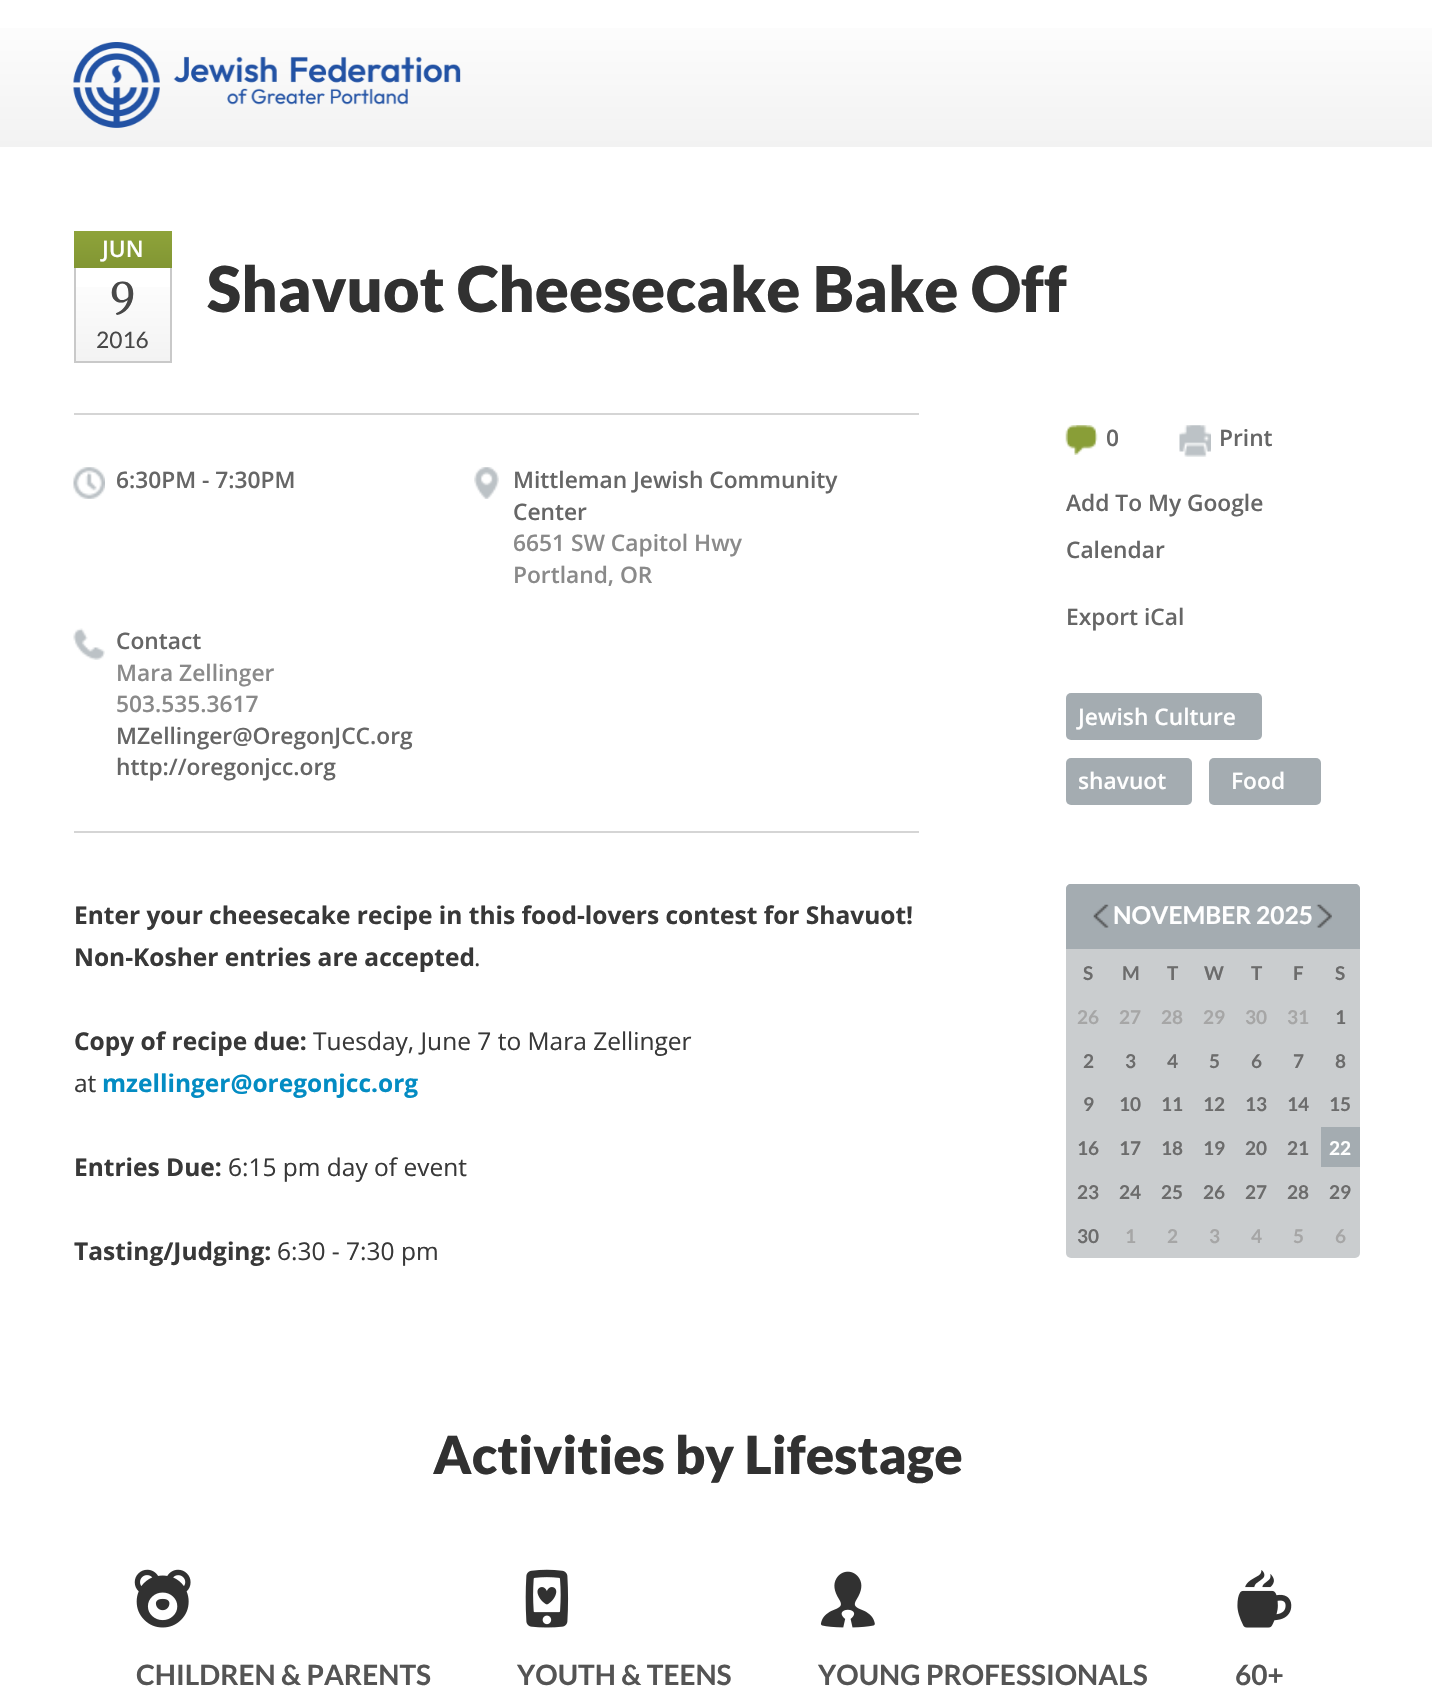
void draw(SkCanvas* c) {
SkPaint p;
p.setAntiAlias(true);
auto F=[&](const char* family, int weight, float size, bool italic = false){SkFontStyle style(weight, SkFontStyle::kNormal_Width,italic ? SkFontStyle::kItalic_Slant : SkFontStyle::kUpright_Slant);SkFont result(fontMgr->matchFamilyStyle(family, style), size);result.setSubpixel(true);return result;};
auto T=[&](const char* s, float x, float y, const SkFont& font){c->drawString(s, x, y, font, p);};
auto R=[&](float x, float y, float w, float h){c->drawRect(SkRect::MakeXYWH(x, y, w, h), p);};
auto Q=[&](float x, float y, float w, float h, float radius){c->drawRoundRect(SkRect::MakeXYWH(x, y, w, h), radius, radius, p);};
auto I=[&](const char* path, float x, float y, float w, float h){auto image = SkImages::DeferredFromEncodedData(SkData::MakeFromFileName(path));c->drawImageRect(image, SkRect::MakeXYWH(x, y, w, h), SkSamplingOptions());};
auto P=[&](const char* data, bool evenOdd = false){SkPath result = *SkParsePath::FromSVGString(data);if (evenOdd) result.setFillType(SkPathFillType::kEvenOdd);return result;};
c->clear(0xffffffff);
{
const SkColor colors[] = {0xffffffff,0xfff2f2f2};
const float stops[] = {0,1};
const SkPoint ends[] = {{717,0}, {717,147}};
p.setShader(SkGradientShader::MakeLinear(ends, colors, stops, 2, SkTileMode::kClamp));
p.setAlpha(255);
}
R(0,28,1432,119);
I("1.png",73,42,388,86);
{
const SkColor colors[] = {0xff8ea33a,0xff829633};
const float stops[] = {0,1};
const SkPoint ends[] = {{123,231}, {123,268}};
p.setShader(SkGradientShader::MakeLinear(ends, colors, stops, 2, SkTileMode::kClamp));
p.setAlpha(255);
}
R(74,231,98,37);
auto f1 = F("Open Sans",600,22.75);
p.setShader(nullptr);
p.setColor(0xffffffff);
T("JUN",102,257,f1);
{
const SkColor colors[] = {0xffffffff,0xfff3f3f3};
const float stops[] = {0,1};
const SkPoint ends[] = {{123,268}, {123,361}};
p.setShader(SkGradientShader::MakeLinear(ends, colors, stops, 2, SkTileMode::kClamp));
p.setAlpha(255);
}
R(76,287,94,74);
p.setShader(nullptr);
p.setColor(0xffc9c9c9);
R(170,268,2,94);
R(74,361,98,2);
R(74,268,2,94);
auto f2 = F("Merriweather",400,42);
p.setColor(0xff484848);
T("9",110,313,f2);
auto f3 = F("Lato",400,22.75);
T("2016",96,348,f3);
auto f4 = F("Lato",900,63);
p.setColor(0xff313131);
T("Shavuot Cheesecake Bake Off",207,312,f4);
p.setColor(0xffd5d5d5);
R(74,413,845,2);
I("2.png",73,467,32,32);
p.setColor(0xff666666);
T("6:30PM - 7:30PM",116,488,f1);
I("3.png",474,467,25,32);
T("Mittleman Jewish Community",513,488,f1);
T("Center",513,520,f1);
p.setColor(0xff8a8a8a);
T("6651 SW Capitol Hwy",513,551,f1);
T("Portland, OR",513,583,f1);
I("4.png",73,628,32,32);
p.setColor(0xff666666);
T("Contact",116,649,f1);
p.setColor(0xff8a8a8a);
T("Mara Zellinger",116,681,f1);
T("503.535.3617",116,712,f1);
p.setColor(0xff666666);
T("MZellinger@OregonJCC.org",116,744,f1);
T("http://oregonjcc.org",116,775,f1);
p.setColor(0xffd5d5d5);
R(74,831,845,2);
auto f5 = F("Open Sans",700,24.5);
p.setColor(0xff383838);
T("Enter your cheesecake recipe in this food-lovers contest for Shavuot!",74,924,f5);
T("Non-Kosher entries are accepted",74,966,f5);
auto f6 = F("Open Sans",400,24.5);
T(".",474,966,f6);
T("Copy of recipe due:",74,1050,f5);
T("Tuesday, June 7 to Mara Zellinger",313,1050,f6);
T("at",74,1092,f6);
p.setColor(0xff038cc3);
T("mzellinger@oregonjcc.org",102,1092,f5);
p.setColor(0xff383838);
T("Entries Due:",74,1176,f5);
T("6:15 pm day of event",228,1176,f6);
T("Tasting/Judging:",74,1260,f5);
T("6:30 - 7:30 pm",277,1260,f6);
I("5.png",1065,425,33,30);
p.setColor(0xff666666);
T("0",1106,446,f1);
I("6.png",1179,425,32,32);
T("Print",1219,446,f1);
T("Add To My Google",1066,511,f1);
T("Calendar",1066,558,f1);
T("Export iCal",1066,625,f1);
p.setColor(0xffa4acb1);
Q(1066,693,196,47,5);
p.setColor(0xffffffff);
T("Jewish Culture",1078,725,f1);
p.setColor(0xffa4acb1);
Q(1066,758,126,47,5);
p.setColor(0xffffffff);
T("shavuot",1078,789,f1);
p.setColor(0xffa4acb1);
Q(1209,758,112,47,5);
p.setColor(0xffffffff);
T("Food",1231,789,f1);
p.setColor(0xffcacdcf);
Q(1066,884,294,374,5);
p.setColor(0xffa4acb1);
c->drawPath(P("M1071 884h284c3 0 5 2 5 5v60h-294v-60c0-3 2-5 5-5z"),p);
I("7.png",1093,904,16,24);
auto f7 = F("Lato",700,24.5);
p.setColor(0xffffffff);
T("NOVEMBER 2025",1113,924,f7);
I("8.png",1316,904,16,24);
auto f8 = F("Lato",700,19);
p.setColor(0xff6c6c6c);
T("S",1083,980,f8);
T("M",1122,980,f8);
T("T",1167,980,f8);
T("W",1204,980,f8);
T("T",1251,980,f8);
T("F",1293,980,f8);
T("S",1335,980,f8);
p.setColor(0xffa6a6a6);
T("26",1077,1024,f8);
T("27",1119,1024,f8);
T("28",1161,1024,f8);
T("29",1203,1024,f8);
T("30",1245,1024,f8);
T("31",1287,1024,f8);
p.setColor(0xff6c6c6c);
T("1",1335,1024,f8);
T("2",1083,1068,f8);
T("3",1125,1068,f8);
T("4",1167,1068,f8);
T("5",1209,1068,f8);
T("6",1251,1068,f8);
T("7",1293,1068,f8);
T("8",1335,1068,f8);
T("9",1083,1111,f8);
T("10",1119,1111,f8);
T("11",1161,1111,f8);
T("12",1203,1111,f8);
T("13",1245,1111,f8);
T("14",1287,1111,f8);
T("15",1329,1111,f8);
T("16",1077,1155,f8);
T("17",1119,1155,f8);
T("18",1161,1155,f8);
T("19",1203,1155,f8);
T("20",1245,1155,f8);
T("21",1287,1155,f8);
p.setColor(0xffa4acb1);
R(1321,1127,39,40);
p.setColor(0xffffffff);
T("22",1329,1155,f8);
p.setColor(0xff6c6c6c);
T("23",1077,1199,f8);
T("24",1119,1199,f8);
T("25",1161,1199,f8);
T("26",1203,1199,f8);
T("27",1245,1199,f8);
T("28",1287,1199,f8);
T("29",1329,1199,f8);
T("30",1077,1243,f8);
p.setColor(0xffa6a6a6);
T("1",1125,1243,f8);
T("2",1167,1243,f8);
T("3",1209,1243,f8);
T("4",1251,1243,f8);
T("5",1293,1243,f8);
T("6",1335,1243,f8);
auto f9 = F("Lato",900,52.5);
p.setColor(0xff313131);
T("Activities by Lifestage",433,1474,f9);
I("9.png",134,1569,57,59);
auto f10 = F("Lato",700,28);
p.setColor(0xff545454);
T("CHILDREN & PARENTS",136,1685,f10);
I("10.png",525,1569,44,59);
T("YOUTH & TEENS",517,1685,f10);
I("11.png",820,1571,55,57);
T("YOUNG PROFESSIONALS",818,1685,f10);
I("12.png",1237,1570,55,58);
T("60+",1235,1685,f10);
}
